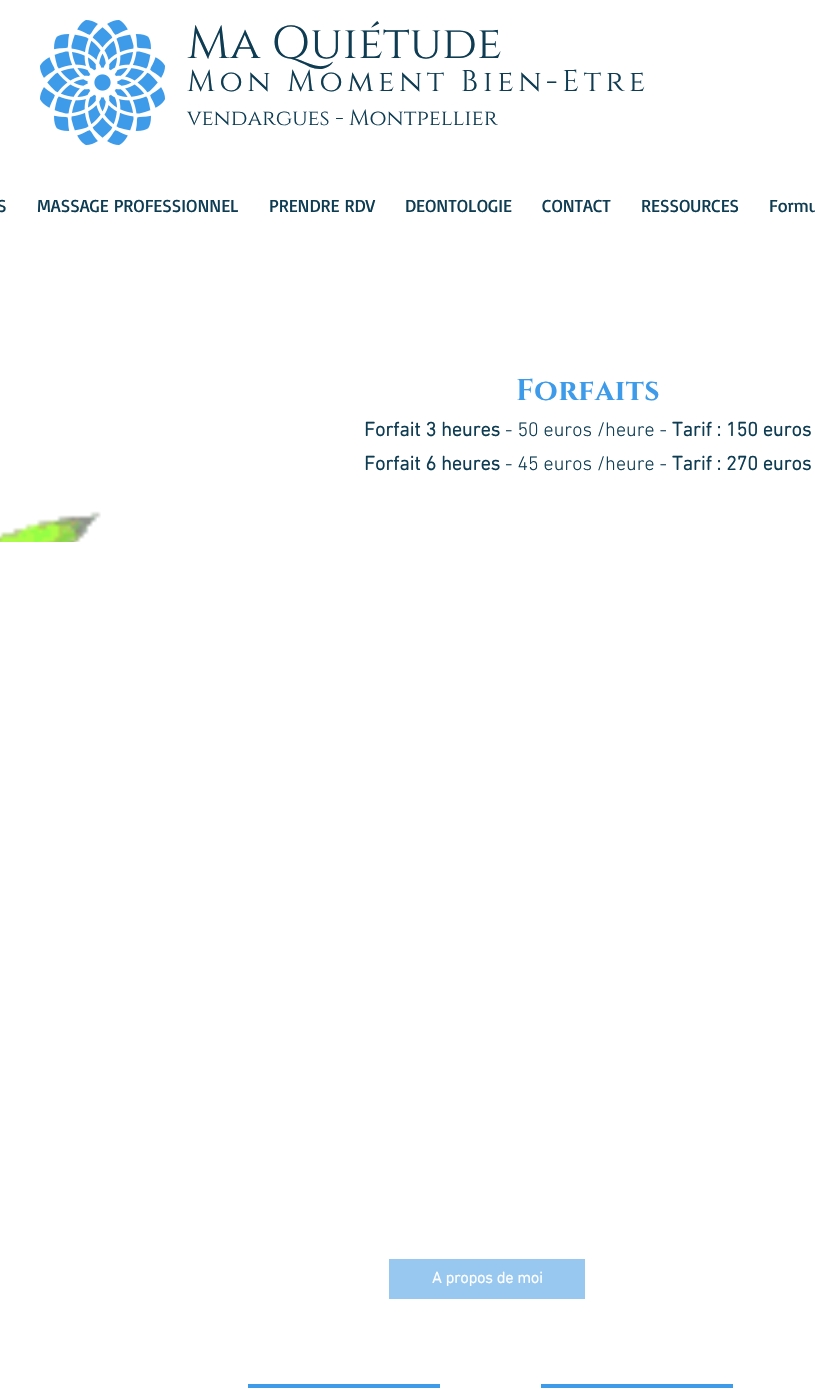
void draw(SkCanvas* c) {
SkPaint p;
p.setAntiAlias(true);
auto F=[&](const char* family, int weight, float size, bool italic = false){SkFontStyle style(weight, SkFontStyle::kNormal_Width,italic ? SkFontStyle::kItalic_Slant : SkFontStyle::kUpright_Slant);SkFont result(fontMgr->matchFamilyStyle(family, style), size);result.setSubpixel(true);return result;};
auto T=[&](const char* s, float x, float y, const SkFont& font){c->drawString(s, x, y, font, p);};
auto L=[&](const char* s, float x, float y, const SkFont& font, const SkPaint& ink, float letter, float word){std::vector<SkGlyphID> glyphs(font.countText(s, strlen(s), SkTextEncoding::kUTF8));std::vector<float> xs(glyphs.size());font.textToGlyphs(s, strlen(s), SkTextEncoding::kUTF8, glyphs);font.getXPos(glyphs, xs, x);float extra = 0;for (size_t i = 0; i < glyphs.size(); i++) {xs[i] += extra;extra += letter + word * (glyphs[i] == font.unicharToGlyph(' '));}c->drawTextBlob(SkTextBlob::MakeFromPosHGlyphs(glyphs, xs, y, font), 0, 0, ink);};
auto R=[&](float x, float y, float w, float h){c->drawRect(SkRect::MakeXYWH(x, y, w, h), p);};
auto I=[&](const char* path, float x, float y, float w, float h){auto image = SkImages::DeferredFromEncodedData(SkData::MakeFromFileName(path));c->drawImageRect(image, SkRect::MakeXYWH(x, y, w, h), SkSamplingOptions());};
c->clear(0xffffffff);
I("1.png",40,20,125,125);
auto f1 = F("Cinzel",400,46);
p.setColor(0xff0e3c53);
T("Ma Quiétude",187,58,f1);
auto f2 = F("Cinzel",400,30);
L("Mon Moment Bien-Etre",187,91,f2,p,4.5,0);
auto f3 = F("Cinzel",400,22);
T("vendargues - Montpellier",187,125,f3);
auto f4 = F("Basic",400,18);
T("S",-3,212,f4);
T("MASSAGE PROFESSIONNEL",37,212,f4);
T("PRENDRE RDV",269,212,f4);
T("DEONTOLOGIE",405,212,f4);
T("CONTACT",542,212,f4);
T("RESSOURCES",641,212,f4);
T("Formu",769,212,f4);
auto f5 = F("Cinzel",700,30);
p.setColor(0xff3d9be9);
L("Forfaits",516,400,f5,p,.5,0);
auto f6 = F("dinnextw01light",700,20);
p.setColor(0xff0e3c53);
T("Forfait 3 heures",364,436,f6);
auto f7 = F("dinnextw01light",300,20);
T("- 50 euros /heure -",505,436,f7);
T("Tarif : 150 euros",672,436,f6);
T("Forfait 6 heures",364,470,f6);
T("- 45 euros /heure -",505,470,f7);
T("Tarif : 270 euros",672,470,f6);
p.setColor(0xff98c8f0);
R(389,1259,196,40);
auto f8 = F("dinnextw01light",700,16);
p.setColor(0xffffffff);
T("A propos de moi",432,1283,f8);
p.setColor(0xff3d9be9);
R(248,1384,192,4);
R(541,1384,192,4);
I("2.png",0,511,101,31);
}
